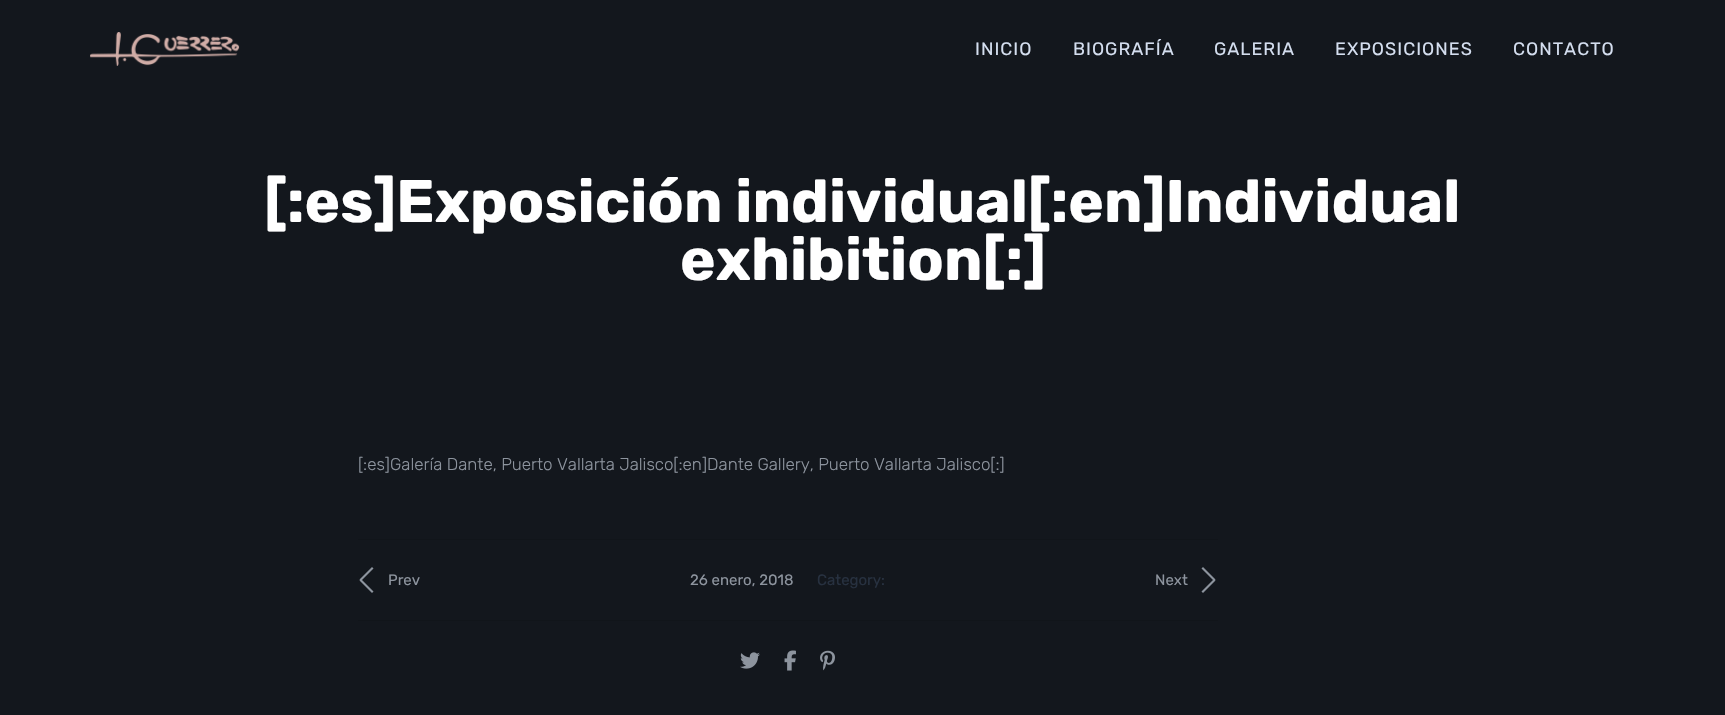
void draw(SkCanvas* c) {
SkPaint p;
p.setAntiAlias(true);
auto F=[&](const char* family, int weight, float size, bool italic = false){SkFontStyle style(weight, SkFontStyle::kNormal_Width,italic ? SkFontStyle::kItalic_Slant : SkFontStyle::kUpright_Slant);SkFont result(fontMgr->matchFamilyStyle(family, style), size);result.setSubpixel(true);return result;};
auto T=[&](const char* s, float x, float y, const SkFont& font){c->drawString(s, x, y, font, p);};
auto L=[&](const char* s, float x, float y, const SkFont& font, const SkPaint& ink, float letter, float word){std::vector<SkGlyphID> glyphs(font.countText(s, strlen(s), SkTextEncoding::kUTF8));std::vector<float> xs(glyphs.size());font.textToGlyphs(s, strlen(s), SkTextEncoding::kUTF8, glyphs);font.getXPos(glyphs, xs, x);float extra = 0;for (size_t i = 0; i < glyphs.size(); i++) {xs[i] += extra;extra += letter + word * (glyphs[i] == font.unicharToGlyph(' '));}c->drawTextBlob(SkTextBlob::MakeFromPosHGlyphs(glyphs, xs, y, font), 0, 0, ink);};
auto R=[&](float x, float y, float w, float h){c->drawRect(SkRect::MakeXYWH(x, y, w, h), p);};
auto I=[&](const char* path, float x, float y, float w, float h){auto image = SkImages::DeferredFromEncodedData(SkData::MakeFromFileName(path));c->drawImageRect(image, SkRect::MakeXYWH(x, y, w, h), SkSamplingOptions());};
auto P=[&](const char* data, bool evenOdd = false){SkPath result = *SkParsePath::FromSVGString(data);if (evenOdd) result.setFillType(SkPathFillType::kEvenOdd);return result;};
c->clear(0xff13171d);
I("1.png",90,32,150,34);
auto f1 = F("Rubik",400,18);
p.setColor(0xffd4deef);
L("INICIO",975,55,f1,p,1,0);
L("BIOGRAFÍA",1073,55,f1,p,1,0);
L("GALERIA",1214,55,f1,p,1,0);
L("EXPOSICIONES",1335,55,f1,p,1,0);
L("CONTACTO",1513,55,f1,p,1,0);
auto f2 = F("Rubik",700,60);
p.setColor(0xffffffff);
T("[:es]Exposición individual[:en]Individual",264,222,f2);
T("exhibition[:]",680,280,f2);
auto f3 = F("Rubik",300,17);
p.setColor(0xff8d949e);
T("[:es]Galería Dante, Puerto Vallarta Jalisco[:en]Dante Gallery, Puerto Vallarta Jalisco[:]",358,470,f3);
p.setColor(0xff11151a);
R(358,539,860,1);
R(358,620,860,1);
p.setColor(0xff8d949e);
c->drawPath(P("M359.5 579.5l12.5-12.5l1.5 1.5l-12.5 12.5z"),p);
auto f4 = F("Rubik",400,15);
T("Prev",388,585,f4);
c->drawPath(P("M361 579l12.5 12.5l-1.5 1.5l-12.5-12.5z"),p);
T("26 enero, 2018",690,585,f4);
p.setColor(0xff273140);
T("Category:",817,585,f4);
p.setColor(0xff8d949e);
T("Next",1155,585,f4);
c->drawPath(P("M1203 567l12.5 12.5l-1.5 1.5l-12.5-12.5z"),p);
c->drawPath(P("M1201.5 591.5l12.5-12.5l1.5 1.5l-12.5 12.5z"),p);
I("2.png",740,652,20,17);
I("3.png",784,650,12,21);
I("4.png",820,650,15,21);
}
